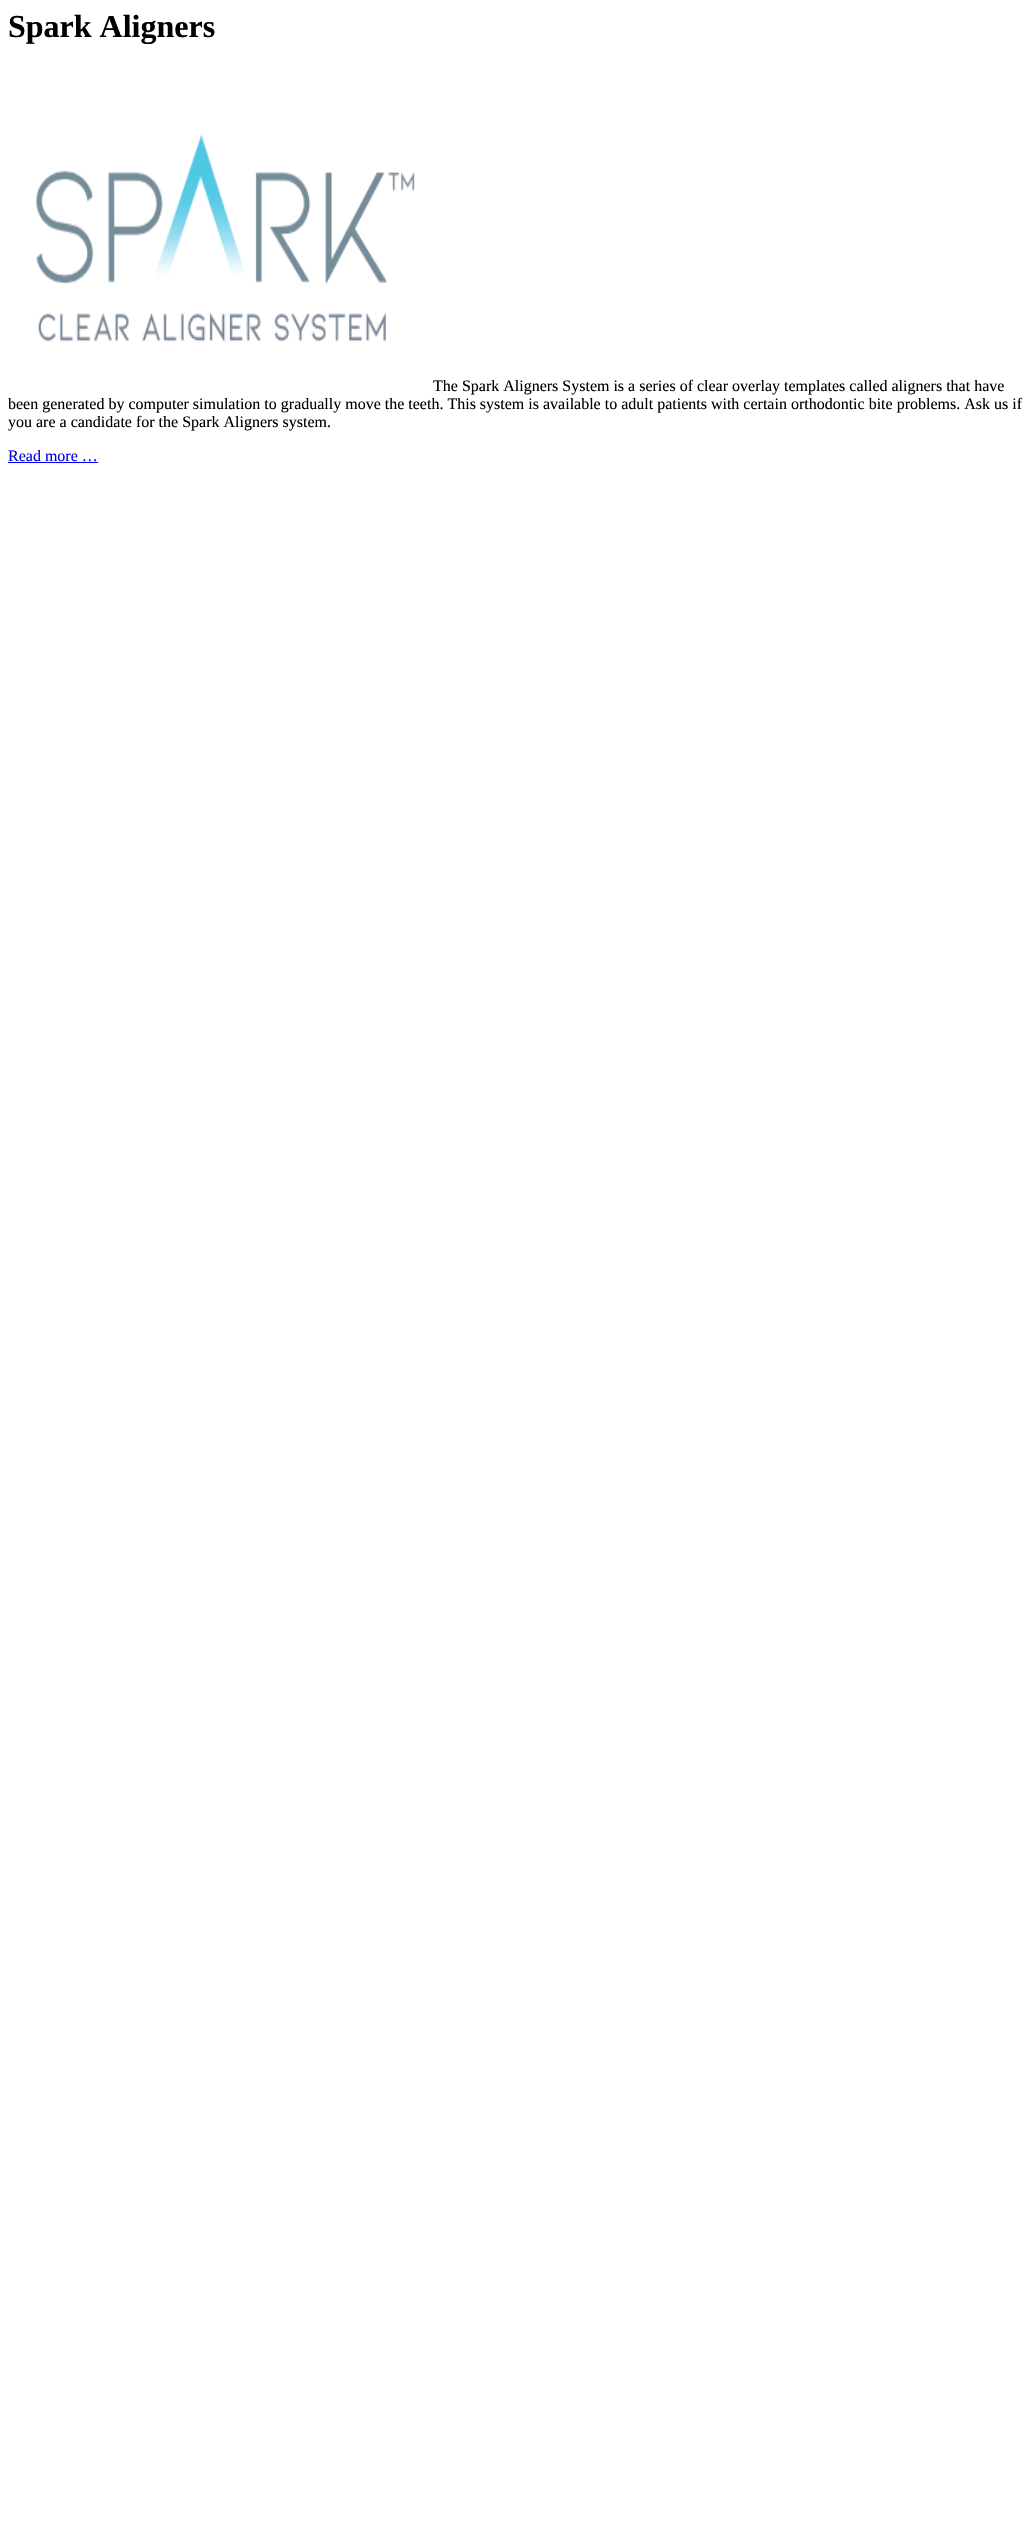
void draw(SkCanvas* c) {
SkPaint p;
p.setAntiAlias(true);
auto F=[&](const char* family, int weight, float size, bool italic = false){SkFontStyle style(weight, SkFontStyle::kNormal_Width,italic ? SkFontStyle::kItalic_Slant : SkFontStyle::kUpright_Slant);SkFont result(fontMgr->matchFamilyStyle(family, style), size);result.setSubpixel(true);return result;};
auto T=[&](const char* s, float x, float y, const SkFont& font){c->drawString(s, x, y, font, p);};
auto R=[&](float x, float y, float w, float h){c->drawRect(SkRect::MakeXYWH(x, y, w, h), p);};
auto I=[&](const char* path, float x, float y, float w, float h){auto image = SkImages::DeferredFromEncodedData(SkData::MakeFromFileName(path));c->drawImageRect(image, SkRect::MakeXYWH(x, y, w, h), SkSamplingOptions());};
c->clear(0xffffffff);
auto f1 = F("Liberation Serif",700,32);
p.setColor(0xff000000);
T("Spark Aligners",8,37,f1);
I("1.png",36,134,379,208);
auto f2 = F("Liberation Serif",400,16);
T("The Spark Aligners System is a series of clear overlay templates called aligners that have",433,391,f2);
T("been generated by computer simulation to gradually move the teeth. This system is available to adult patients with certain orthodontic bite problems. Ask us if",8,409,f2);
T("you are a candidate for the Spark Aligners system.",8,427,f2);
p.setColor(0xff0000ee);
T("Read more …",8,461,f2);
R(8,462,90,1);
}
